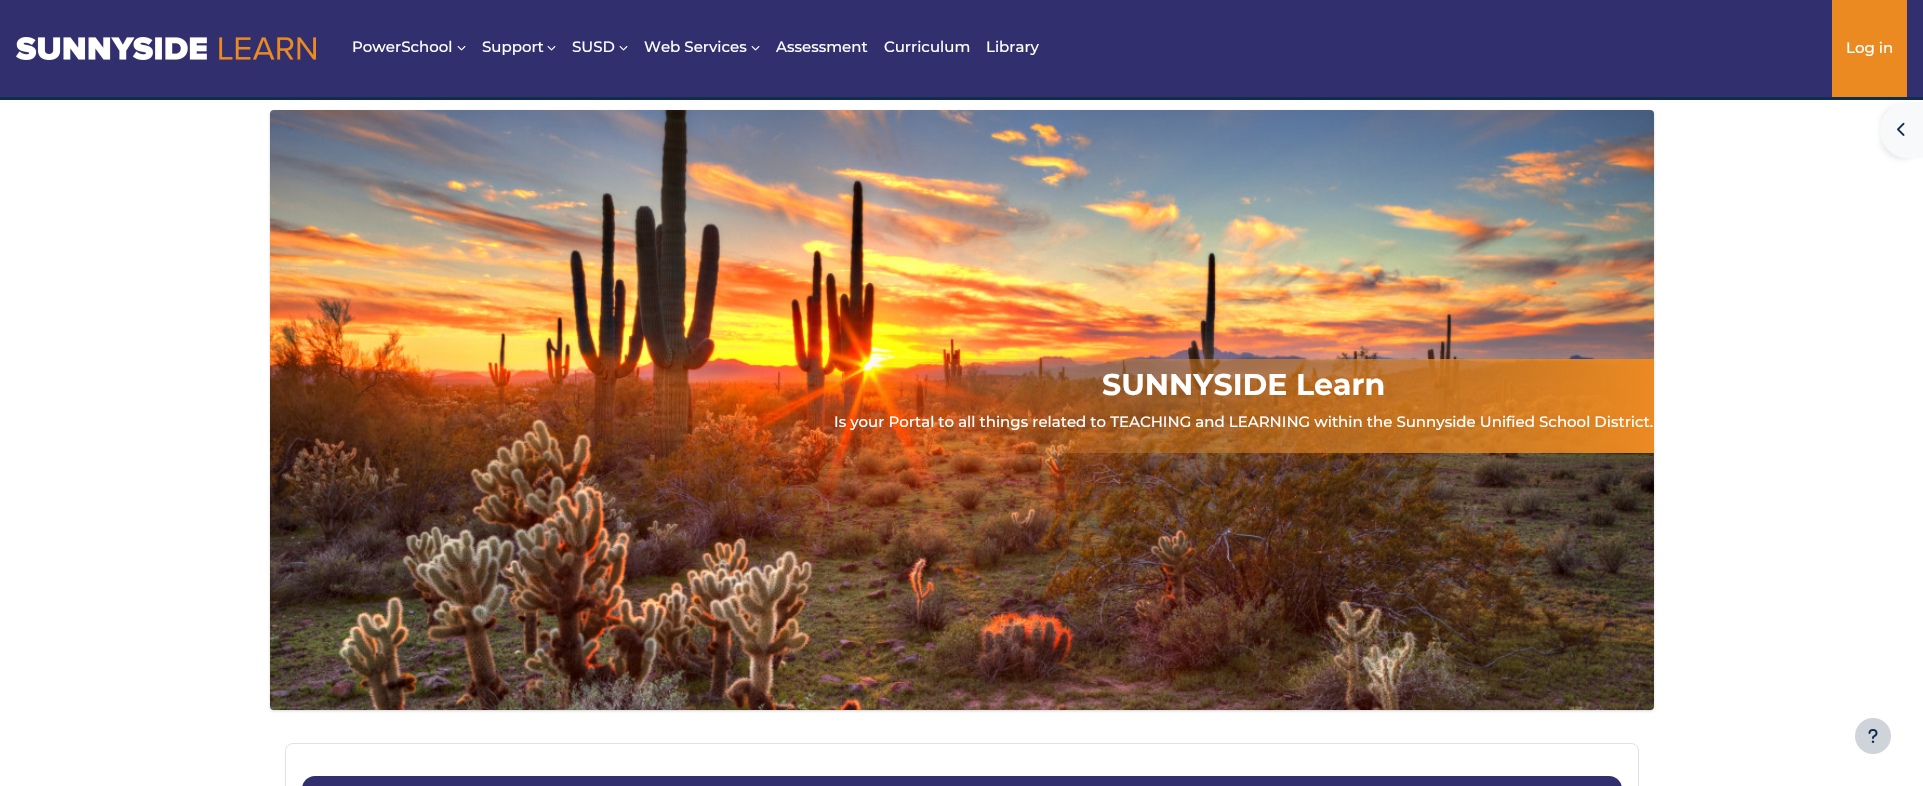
void draw(SkCanvas* c) {
SkPaint p;
p.setAntiAlias(true);
auto F=[&](const char* family, int weight, float size, bool italic = false){SkFontStyle style(weight, SkFontStyle::kNormal_Width,italic ? SkFontStyle::kItalic_Slant : SkFontStyle::kUpright_Slant);SkFont result(fontMgr->matchFamilyStyle(family, style), size);result.setSubpixel(true);return result;};
auto T=[&](const char* s, float x, float y, const SkFont& font){c->drawString(s, x, y, font, p);};
auto R=[&](float x, float y, float w, float h){c->drawRect(SkRect::MakeXYWH(x, y, w, h), p);};
auto Q=[&](float x, float y, float w, float h, float radius){c->drawRoundRect(SkRect::MakeXYWH(x, y, w, h), radius, radius, p);};
auto I=[&](const char* path, float x, float y, float w, float h){auto image = SkImages::DeferredFromEncodedData(SkData::MakeFromFileName(path));c->drawImageRect(image, SkRect::MakeXYWH(x, y, w, h), SkSamplingOptions());};
auto P=[&](const char* data, bool evenOdd = false){SkPath result = *SkParsePath::FromSVGString(data);if (evenOdd) result.setFillType(SkPathFillType::kEvenOdd);return result;};
c->clear(0xffffffff);
p.setColor(0xff322f6f);
R(0,0,1923,97);
p.setColor(0x12000000);
p.setMaskFilter(SkMaskFilter::MakeBlur(kNormal_SkBlurStyle, 2));
c->drawRoundRect(SkRect::MakeXYWH(1880,104,43,56),28,28,p);
p.setMaskFilter(nullptr);
p.setColor(0xff112d4e);
R(0,97,1923,3);
I("1.png",16,37,300,23);
auto f1 = F("Montserrat",500,15);
p.setColor(0xffffffff);
T("PowerSchool",352,52,f1);
I("2.png",457,46,9,5);
T("Support",482,52,f1);
I("2.png",547,46,9,5);
T("SUSD",572,52,f1);
I("2.png",619,46,9,5);
T("Web Services",644,52,f1);
I("2.png",751,46,9,5);
T("Assessment",776,52,f1);
T("Curriculum",884,52,f1);
T("Library",986,52,f1);
p.setColor(0xffec8a22);
R(1832,0,75,97);
p.setColor(0xffffffff);
T("Log in",1846,53,f1);
p.setColor(0xfff8f9fa);
c->drawPath(P("M1908 102h15v56h-15c-15.5 0-28-12.5-28-28c0-15.5 12.5-28 28-28z"),p);
I("3.png",1897,122,8,14);
p.setColor(0x0f000000);
p.setMaskFilter(SkMaskFilter::MakeBlur(kNormal_SkBlurStyle, 1));
c->drawRoundRect(SkRect::MakeXYWH(270,111,1384,600),4,4,p);
p.setMaskFilter(nullptr);
p.setColor(0x1a000000);
p.setMaskFilter(SkMaskFilter::MakeBlur(kNormal_SkBlurStyle, 1.5));
c->drawRoundRect(SkRect::MakeXYWH(270,111,1384,600),4,4,p);
p.setMaskFilter(nullptr);
I("4.png",270,110,1384,600);
auto f2 = F("Montserrat",700,30);
p.setColor(0xffffffff);
T("SUNNYSIDE Learn",1102,395,f2);
T("Is your Portal to all things related to TEACHING and LEARNING within the Sunnyside Unified School District.",834,427,f1);
p.setStroke(true);
p.setStrokeWidth(1);
p.setColor(0xffdee2e6);
c->drawRoundRect(SkRect::MakeXYWH(285.5,743.5,1353,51),7.5,7.5,p);
p.setStroke(false);
p.setColor(0xff322f6f);
Q(302,776,1320,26,16);
p.setColor(0xffced4da);
c->drawCircle(1873,736,18,p);
I("5.png",1868,729,10,14);
}
